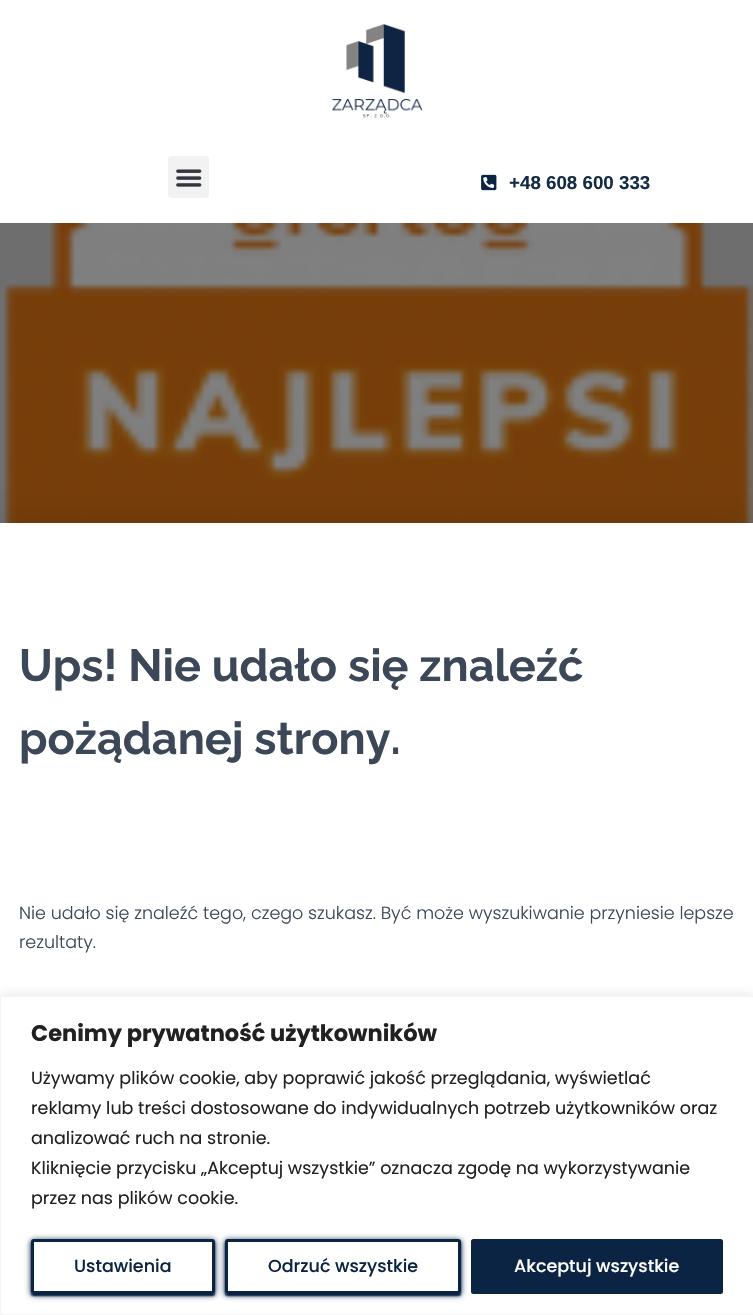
void draw(SkCanvas* c) {
SkPaint p;
p.setAntiAlias(true);
auto F=[&](const char* family, int weight, float size, bool italic = false){SkFontStyle style(weight, SkFontStyle::kNormal_Width,italic ? SkFontStyle::kItalic_Slant : SkFontStyle::kUpright_Slant);SkFont result(fontMgr->matchFamilyStyle(family, style), size);result.setSubpixel(true);return result;};
auto T=[&](const char* s, float x, float y, const SkFont& font){c->drawString(s, x, y, font, p);};
auto R=[&](float x, float y, float w, float h){c->drawRect(SkRect::MakeXYWH(x, y, w, h), p);};
auto Q=[&](float x, float y, float w, float h, float radius){c->drawRoundRect(SkRect::MakeXYWH(x, y, w, h), radius, radius, p);};
auto I=[&](const char* path, float x, float y, float w, float h){auto image = SkImages::DeferredFromEncodedData(SkData::MakeFromFileName(path));c->drawImageRect(image, SkRect::MakeXYWH(x, y, w, h), SkSamplingOptions());};
auto P=[&](const char* data, bool evenOdd = false){SkPath result = *SkParsePath::FromSVGString(data);if (evenOdd) result.setFillType(SkPathFillType::kEvenOdd);return result;};
c->clear(0xff6e6e6e);
p.setColor(0xffffffff);
R(0,0,753,223);
I("1.png",331,23,92,95);
p.setColor(0xfff2f2f2);
Q(168,156,41,42,4);
I("2.png",176,169,26,18);
I("3.png",481,174,16,17);
auto f1 = F("Liberation Sans",700,18.75);
p.setColor(0xff142c46);
T("+48 608 600 333",509,189,f1);
I("4.png",4,223,749,300);
p.setColor(0x1f000000);
p.setMaskFilter(SkMaskFilter::MakeBlur(kNormal_SkBlurStyle, 19));
c->drawRect(SkRect::MakeXYWH(-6,524,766,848),p);
p.setMaskFilter(nullptr);
p.setColor(0xffffffff);
R(0,523,753,473);
auto f2 = F("Raleway",700,45);
p.setColor(0xff3c4858);
T("Ups! Nie udało się znaleźć",19,681,f2);
T("pożądanej strony.",19,754,f2);
auto f3 = F("Poppins",300,17.5);
T("Nie udało się znaleźć tego, czego szukasz. Być może wyszukiwanie przyniesie lepsze",19,919,f3);
T("rezultaty.",19,948,f3);
p.setColor(0x4dacabab);
p.setMaskFilter(SkMaskFilter::MakeBlur(kNormal_SkBlurStyle, 6));
c->drawRect(SkRect::MakeXYWH(0,995,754,319),p);
p.setMaskFilter(nullptr);
p.setColor(0xffffffff);
c->drawRect(SkRect::MakeXYWH(.5,996.5,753,318),p);
p.setStroke(true);
p.setStrokeWidth(1);
p.setColor(0xfff4f4f4);
c->drawRect(SkRect::MakeXYWH(.5,996.5,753,318),p);
auto f4 = F("Poppins",700,22.5);
p.setStroke(false);
p.setColor(0xff212121);
T("Cenimy prywatność użytkowników",31,1041,f4);
auto f5 = F("Poppins",400,17.5);
T("Używamy plików cookie, aby poprawić jakość przeglądania, wyświetlać",31,1084,f5);
T("reklamy lub treści dostosowane do indywidualnych potrzeb użytkowników oraz",31,1114,f5);
T("analizować ruch na stronie.",31,1144,f5);
T("Kliknięcie przycisku „Akceptuj wszystkie” oznacza zgodę na wykorzystywanie",31,1174,f5);
T("przez nas plików cookie.",31,1204,f5);
c->save();
c->clipPath(P("M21 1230h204v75h-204zm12.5 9h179c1.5 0 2.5 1 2.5 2.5v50c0 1.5-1 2.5-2.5 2.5h-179c-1.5 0-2.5-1-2.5-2.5v-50c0-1.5 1-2.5 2.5-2.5z",true),true);
p.setColor(0xff0c2444);
p.setMaskFilter(SkMaskFilter::MakeBlur(kNormal_SkBlurStyle, 3));
c->drawRoundRect(SkRect::MakeXYWH(31,1240,184,55),2.5,2.5,p);
p.setMaskFilter(nullptr);
c->restore();
c->save();
c->clipPath(P("M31 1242h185v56h-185zm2.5-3h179c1.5 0 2.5 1 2.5 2.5v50c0 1.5-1 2.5-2.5 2.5h-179c-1.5 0-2.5-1-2.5-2.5v-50c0-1.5 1-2.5 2.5-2.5z",true),true);
p.setMaskFilter(SkMaskFilter::MakeBlur(kNormal_SkBlurStyle, .5));
c->drawRect(SkRect::MakeXYWH(34,1245,179,50),p);
p.setMaskFilter(nullptr);
c->restore();
c->save();
c->clipPath(P("M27 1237h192v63h-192zm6.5 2h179c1.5 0 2.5 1 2.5 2.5v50c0 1.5-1 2.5-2.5 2.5h-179c-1.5 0-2.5-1-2.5-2.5v-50c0-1.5 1-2.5 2.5-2.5z",true),true);
p.setMaskFilter(SkMaskFilter::MakeBlur(kNormal_SkBlurStyle, 1));
c->drawRoundRect(SkRect::MakeXYWH(31,1241,184,55),2.5,2.5,p);
p.setMaskFilter(nullptr);
c->restore();
p.setStroke(true);
p.setStrokeWidth(3);
c->drawRoundRect(SkRect::MakeXYWH(32.5,1240.5,181,52),1,1,p);
auto f6 = F("Poppins",500,17.5);
p.setStroke(false);
T("Ustawienia",74,1272,f6);
c->save();
c->clipPath(P("M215 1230h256v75h-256zm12.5 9h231c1.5 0 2.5 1 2.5 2.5v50c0 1.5-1 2.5-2.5 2.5h-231c-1.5 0-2.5-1-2.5-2.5v-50c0-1.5 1-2.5 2.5-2.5z",true),true);
p.setMaskFilter(SkMaskFilter::MakeBlur(kNormal_SkBlurStyle, 3));
c->drawRoundRect(SkRect::MakeXYWH(225,1240,236,55),2.5,2.5,p);
p.setMaskFilter(nullptr);
c->restore();
c->save();
c->clipPath(P("M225 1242h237v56h-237zm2.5-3h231c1.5 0 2.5 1 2.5 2.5v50c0 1.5-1 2.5-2.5 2.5h-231c-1.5 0-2.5-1-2.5-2.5v-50c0-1.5 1-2.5 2.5-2.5z",true),true);
p.setMaskFilter(SkMaskFilter::MakeBlur(kNormal_SkBlurStyle, .5));
c->drawRect(SkRect::MakeXYWH(228,1245,231,50),p);
p.setMaskFilter(nullptr);
c->restore();
c->save();
c->clipPath(P("M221 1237h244v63h-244zm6.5 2h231c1.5 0 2.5 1 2.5 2.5v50c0 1.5-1 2.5-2.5 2.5h-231c-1.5 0-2.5-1-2.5-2.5v-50c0-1.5 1-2.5 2.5-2.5z",true),true);
p.setMaskFilter(SkMaskFilter::MakeBlur(kNormal_SkBlurStyle, 1));
c->drawRoundRect(SkRect::MakeXYWH(225,1241,236,55),2.5,2.5,p);
p.setMaskFilter(nullptr);
c->restore();
p.setStroke(true);
c->drawRoundRect(SkRect::MakeXYWH(226.5,1240.5,233,52),1,1,p);
p.setStroke(false);
T("Odrzuć wszystkie",268,1272,f6);
c->drawRoundRect(SkRect::MakeXYWH(472.5,1240.5,249,52),1,1,p);
p.setStroke(true);
c->drawRoundRect(SkRect::MakeXYWH(472.5,1240.5,249,52),1,1,p);
p.setStroke(false);
p.setColor(0xffffffff);
T("Akceptuj wszystkie",514,1272,f6);
}
